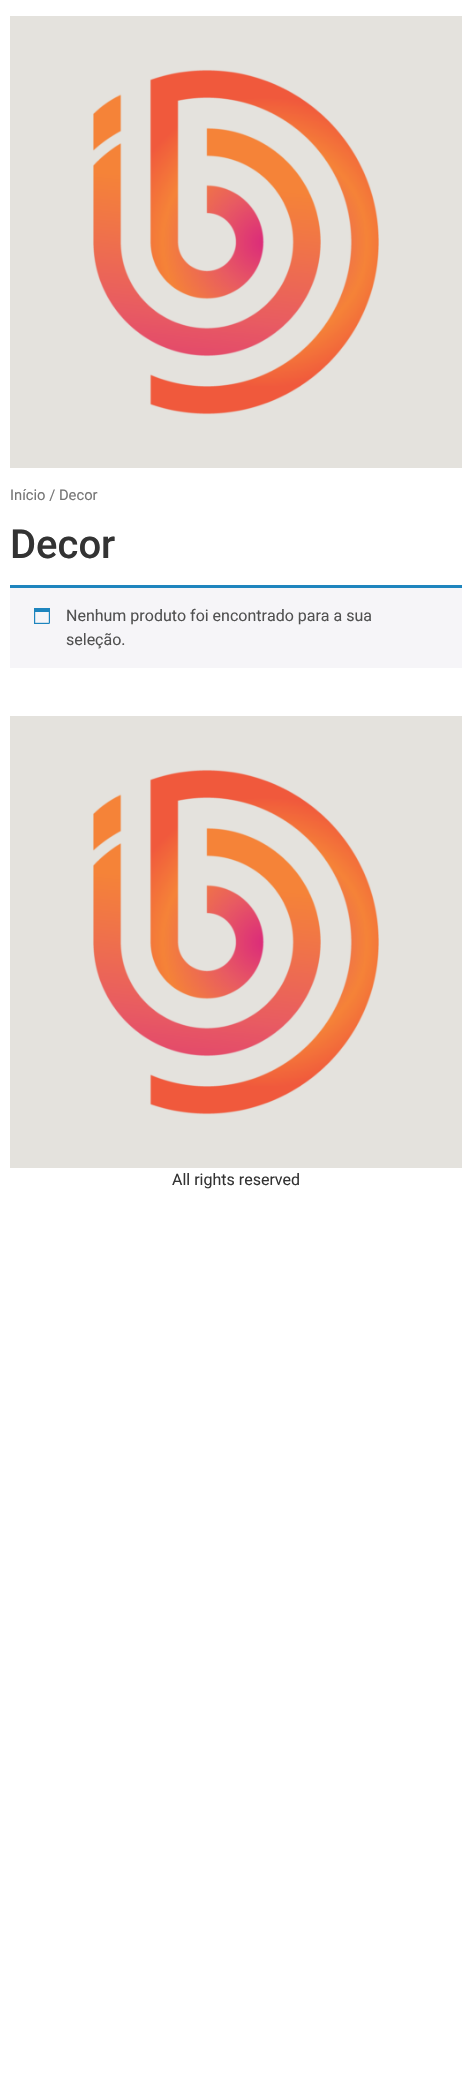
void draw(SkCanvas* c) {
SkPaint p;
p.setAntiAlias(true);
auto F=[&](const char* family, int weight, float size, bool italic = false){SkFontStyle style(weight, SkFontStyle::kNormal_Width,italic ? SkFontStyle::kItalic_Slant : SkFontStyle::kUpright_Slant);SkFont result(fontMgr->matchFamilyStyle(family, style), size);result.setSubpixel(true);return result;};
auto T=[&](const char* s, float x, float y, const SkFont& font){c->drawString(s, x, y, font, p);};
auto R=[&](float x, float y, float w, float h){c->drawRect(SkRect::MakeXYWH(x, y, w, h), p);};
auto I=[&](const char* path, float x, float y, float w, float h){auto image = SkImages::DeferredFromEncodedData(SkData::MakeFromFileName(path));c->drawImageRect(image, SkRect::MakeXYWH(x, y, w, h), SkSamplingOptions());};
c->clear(0xffffffff);
I("1.png",10,16,452,452);
auto f1 = F("Roboto",400,14.75);
p.setColor(0xff767676);
T("Início / Decor",10,500,f1);
auto f2 = F("Roboto",500,40);
p.setColor(0xff333333);
T("Decor",10,558,f2);
p.setColor(0xfff6f5f8);
R(10,588,452,80);
p.setColor(0xff1e85be);
R(10,585,452,3);
I("2.png",34,608,16,16);
auto f3 = F("Roboto",400,16);
p.setColor(0xff515151);
T("Nenhum produto foi encontrado para a sua",66,621,f3);
T("seleção.",66,645,f3);
I("1.png",10,716,452,452);
p.setColor(0xff333333);
T("All rights reserved",172,1185,f3);
}
